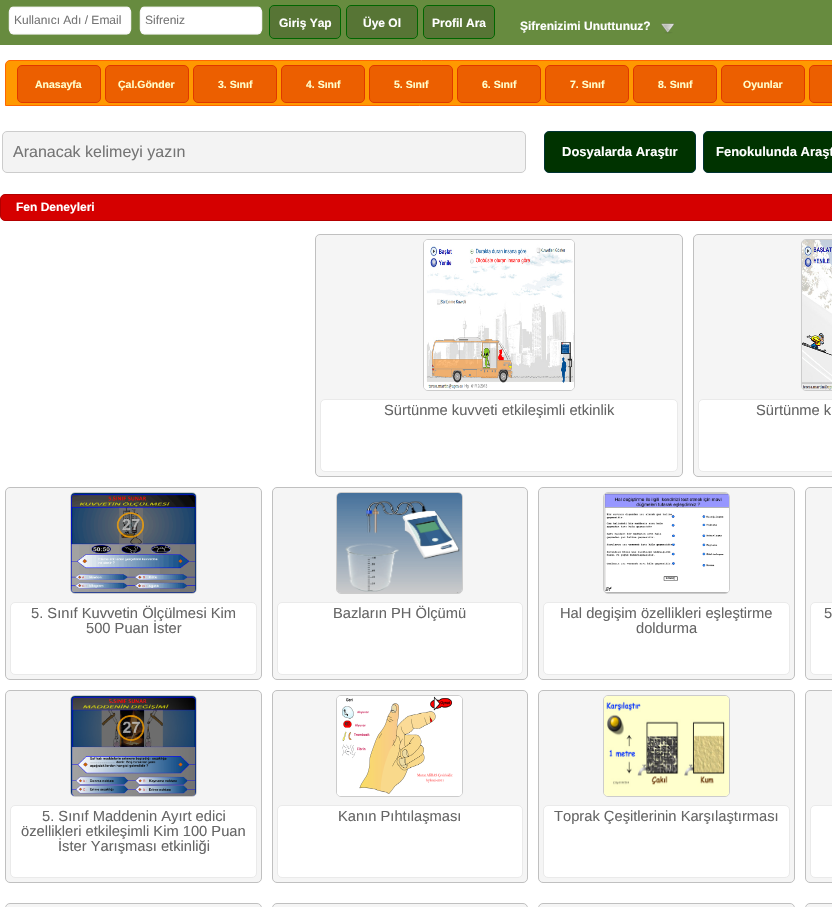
void draw(SkCanvas* c) {
SkPaint p;
p.setAntiAlias(true);
auto F=[&](const char* family, int weight, float size, bool italic = false){SkFontStyle style(weight, SkFontStyle::kNormal_Width,italic ? SkFontStyle::kItalic_Slant : SkFontStyle::kUpright_Slant);SkFont result(fontMgr->matchFamilyStyle(family, style), size);result.setSubpixel(true);return result;};
auto T=[&](const char* s, float x, float y, const SkFont& font){c->drawString(s, x, y, font, p);};
auto R=[&](float x, float y, float w, float h){c->drawRect(SkRect::MakeXYWH(x, y, w, h), p);};
auto I=[&](const char* path, float x, float y, float w, float h){auto image = SkImages::DeferredFromEncodedData(SkData::MakeFromFileName(path));c->drawImageRect(image, SkRect::MakeXYWH(x, y, w, h), SkSamplingOptions());};
auto P=[&](const char* data, bool evenOdd = false){SkPath result = *SkParsePath::FromSVGString(data);if (evenOdd) result.setFillType(SkPathFillType::kEvenOdd);return result;};
c->clear(0xffffffff);
p.setColor(0xff678b3f);
R(0,0,832,45);
I("1.png",8,6,124,29);
auto f1 = F("Liberation Sans",400,12);
p.setColor(0xff757575);
T("Kullanıcı Adı / Email",14,24,f1);
I("1.png",139,6,124,29);
T("Sifreniz",145,24,f1);
p.setColor(0xff577535);
c->drawRoundRect(SkRect::MakeXYWH(269.5,5.5,71,33),4.5,4.5,p);
p.setStroke(true);
p.setStrokeWidth(1);
p.setColor(0xff006600);
c->drawRoundRect(SkRect::MakeXYWH(269.5,5.5,71,33),4.5,4.5,p);
auto f2 = F("Liberation Sans",700,12);
p.setStroke(false);
p.setColor(0xffffffff);
T("Giriş Yap",279,27,f2);
p.setColor(0xff577535);
c->drawRoundRect(SkRect::MakeXYWH(346.5,5.5,71,33),4.5,4.5,p);
p.setStroke(true);
p.setColor(0xff006600);
c->drawRoundRect(SkRect::MakeXYWH(346.5,5.5,71,33),4.5,4.5,p);
p.setStroke(false);
p.setColor(0xffffffff);
T("Üye Ol",363,27,f2);
p.setColor(0xff577535);
c->drawRoundRect(SkRect::MakeXYWH(423.5,5.5,71,33),4.5,4.5,p);
p.setStroke(true);
p.setColor(0xff006600);
c->drawRoundRect(SkRect::MakeXYWH(423.5,5.5,71,33),4.5,4.5,p);
p.setStroke(false);
p.setColor(0xffffffff);
T("Profil Ara",432,27,f2);
I("2.png",661,23,13,11);
T("Şifrenizimi Unuttunuz?",520,30,f2);
p.setColor(0xffff9900);
c->drawPath(P("M10 60.5h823c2.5 0 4.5 2 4.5 4.5v40.5h-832v-40.5c0-2.5 2-4.5 4.5-4.5z"),p);
p.setStroke(true);
p.setColor(0xffff6600);
c->drawPath(P("M10 60.5h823c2.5 0 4.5 2 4.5 4.5v40.5h-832v-40.5c0-2.5 2-4.5 4.5-4.5z"),p);
p.setStroke(false);
p.setColor(0xffec5f00);
c->drawRoundRect(SkRect::MakeXYWH(17.5,65.5,83,37),4.5,4.5,p);
p.setStroke(true);
p.setColor(0xffdf3800);
c->drawRoundRect(SkRect::MakeXYWH(17.5,65.5,83,37),4.5,4.5,p);
auto f3 = F("Liberation Sans",700,10.5);
p.setStroke(false);
p.setColor(0xffffffcc);
T("Anasayfa",35,88,f3);
p.setColor(0xffec5f00);
c->drawRoundRect(SkRect::MakeXYWH(105.5,65.5,83,37),4.5,4.5,p);
p.setStroke(true);
p.setColor(0xffdf3800);
c->drawRoundRect(SkRect::MakeXYWH(105.5,65.5,83,37),4.5,4.5,p);
p.setStroke(false);
p.setColor(0xffffffcc);
T("Çal.Gönder",118,88,f3);
p.setColor(0xffec5f00);
c->drawRoundRect(SkRect::MakeXYWH(193.5,65.5,83,37),4.5,4.5,p);
p.setStroke(true);
p.setColor(0xffdf3800);
c->drawRoundRect(SkRect::MakeXYWH(193.5,65.5,83,37),4.5,4.5,p);
p.setStroke(false);
p.setColor(0xffffffcc);
T("3. Sınıf",218,88,f3);
p.setColor(0xffec5f00);
c->drawRoundRect(SkRect::MakeXYWH(281.5,65.5,83,37),4.5,4.5,p);
p.setStroke(true);
p.setColor(0xffdf3800);
c->drawRoundRect(SkRect::MakeXYWH(281.5,65.5,83,37),4.5,4.5,p);
p.setStroke(false);
p.setColor(0xffffffcc);
T("4. Sınıf",306,88,f3);
p.setColor(0xffec5f00);
c->drawRoundRect(SkRect::MakeXYWH(369.5,65.5,83,37),4.5,4.5,p);
p.setStroke(true);
p.setColor(0xffdf3800);
c->drawRoundRect(SkRect::MakeXYWH(369.5,65.5,83,37),4.5,4.5,p);
p.setStroke(false);
p.setColor(0xffffffcc);
T("5. Sınıf",394,88,f3);
p.setColor(0xffec5f00);
c->drawRoundRect(SkRect::MakeXYWH(457.5,65.5,83,37),4.5,4.5,p);
p.setStroke(true);
p.setColor(0xffdf3800);
c->drawRoundRect(SkRect::MakeXYWH(457.5,65.5,83,37),4.5,4.5,p);
p.setStroke(false);
p.setColor(0xffffffcc);
T("6. Sınıf",482,88,f3);
p.setColor(0xffec5f00);
c->drawRoundRect(SkRect::MakeXYWH(545.5,65.5,83,37),4.5,4.5,p);
p.setStroke(true);
p.setColor(0xffdf3800);
c->drawRoundRect(SkRect::MakeXYWH(545.5,65.5,83,37),4.5,4.5,p);
p.setStroke(false);
p.setColor(0xffffffcc);
T("7. Sınıf",570,88,f3);
p.setColor(0xffec5f00);
c->drawRoundRect(SkRect::MakeXYWH(633.5,65.5,83,37),4.5,4.5,p);
p.setStroke(true);
p.setColor(0xffdf3800);
c->drawRoundRect(SkRect::MakeXYWH(633.5,65.5,83,37),4.5,4.5,p);
p.setStroke(false);
p.setColor(0xffffffcc);
T("8. Sınıf",658,88,f3);
p.setColor(0xffec5f00);
c->drawRoundRect(SkRect::MakeXYWH(721.5,65.5,83,37),4.5,4.5,p);
p.setStroke(true);
p.setColor(0xffdf3800);
c->drawRoundRect(SkRect::MakeXYWH(721.5,65.5,83,37),4.5,4.5,p);
p.setStroke(false);
p.setColor(0xffffffcc);
T("Oyunlar",743,88,f3);
p.setColor(0xffec5f00);
c->drawRoundRect(SkRect::MakeXYWH(809.5,65.5,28,37),4.5,4.5,p);
p.setStroke(true);
p.setColor(0xffdf3800);
c->drawRoundRect(SkRect::MakeXYWH(809.5,65.5,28,37),4.5,4.5,p);
p.setStroke(false);
p.setColor(0xfff3f3f3);
c->drawRoundRect(SkRect::MakeXYWH(2.5,131.5,523,41),4.5,4.5,p);
p.setStroke(true);
p.setColor(0xffcccccc);
c->drawRoundRect(SkRect::MakeXYWH(2.5,131.5,523,41),4.5,4.5,p);
auto f4 = F("Liberation Sans",400,16);
p.setStroke(false);
p.setColor(0xff757575);
T("Aranacak kelimeyi yazın",13,157,f4);
p.setColor(0xff003300);
c->drawRoundRect(SkRect::MakeXYWH(544.5,131.5,151,41),4.5,4.5,p);
p.setStroke(true);
p.setColor(0xff003333);
c->drawRoundRect(SkRect::MakeXYWH(544.5,131.5,151,41),4.5,4.5,p);
auto f5 = F("Liberation Sans",700,13);
p.setStroke(false);
p.setColor(0xffffffff);
T("Dosyalarda Araştır",562,156,f5);
p.setColor(0xff003300);
c->drawRoundRect(SkRect::MakeXYWH(703.5,131.5,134,41),4.5,4.5,p);
p.setStroke(true);
p.setColor(0xff003333);
c->drawRoundRect(SkRect::MakeXYWH(703.5,131.5,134,41),4.5,4.5,p);
p.setStroke(false);
p.setColor(0xffffffff);
T("Fenokulunda Araşt",716,156,f5);
p.setColor(0xffd50000);
c->drawRoundRect(SkRect::MakeXYWH(.5,194.5,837,26),4.5,4.5,p);
p.setStroke(true);
p.setColor(0xffb30000);
c->drawRoundRect(SkRect::MakeXYWH(.5,194.5,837,26),4.5,4.5,p);
p.setStroke(false);
p.setColor(0xffffffff);
T("Fen Deneyleri",16,211,f2);
p.setColor(0xfff5f5f5);
c->drawRoundRect(SkRect::MakeXYWH(315.5,234.5,367,242),4.5,4.5,p);
p.setStroke(true);
p.setColor(0xffc0c0c0);
c->drawRoundRect(SkRect::MakeXYWH(315.5,234.5,367,242),4.5,4.5,p);
p.setColor(0xffcccccc);
c->drawRoundRect(SkRect::MakeXYWH(423.5,239.5,151,151),4.5,4.5,p);
I("3.png",424,240,150,150);
p.setStroke(false);
p.setColor(0xffffffff);
c->drawRoundRect(SkRect::MakeXYWH(320.5,399.5,357,72),4.5,4.5,p);
p.setStroke(true);
p.setColor(0xffeaeaea);
c->drawRoundRect(SkRect::MakeXYWH(320.5,399.5,357,72),4.5,4.5,p);
auto f6 = F("Liberation Sans",400,14.7);
p.setStroke(false);
p.setColor(0xff666666);
T("Sürtünme kuvveti etkileşimli etkinlik",384,415,f6);
p.setColor(0xfff5f5f5);
c->drawRoundRect(SkRect::MakeXYWH(693.5,234.5,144,242),4.5,4.5,p);
p.setStroke(true);
p.setColor(0xffc0c0c0);
c->drawRoundRect(SkRect::MakeXYWH(693.5,234.5,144,242),4.5,4.5,p);
p.setColor(0xffcccccc);
c->drawRoundRect(SkRect::MakeXYWH(801.5,239.5,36,151),4.5,4.5,p);
I("4.png",802,240,30,150);
p.setStroke(false);
p.setColor(0xffffffff);
c->drawRoundRect(SkRect::MakeXYWH(698.5,399.5,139,72),4.5,4.5,p);
p.setStroke(true);
p.setColor(0xffeaeaea);
c->drawRoundRect(SkRect::MakeXYWH(698.5,399.5,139,72),4.5,4.5,p);
p.setStroke(false);
p.setColor(0xff666666);
T("Sürtünme k",756,415,f6);
p.setColor(0xfff5f5f5);
c->drawRoundRect(SkRect::MakeXYWH(5.5,487.5,256,192),4.5,4.5,p);
p.setStroke(true);
p.setColor(0xffc0c0c0);
c->drawRoundRect(SkRect::MakeXYWH(5.5,487.5,256,192),4.5,4.5,p);
p.setColor(0xffcccccc);
c->drawRoundRect(SkRect::MakeXYWH(70.5,492.5,126,101),4.5,4.5,p);
I("5.png",71,493,125,100);
p.setStroke(false);
p.setColor(0xffffffff);
c->drawRoundRect(SkRect::MakeXYWH(10.5,602.5,246,72),4.5,4.5,p);
p.setStroke(true);
p.setColor(0xffeaeaea);
c->drawRoundRect(SkRect::MakeXYWH(10.5,602.5,246,72),4.5,4.5,p);
p.setStroke(false);
p.setColor(0xff666666);
T("5. Sınıf Kuvvetin Ölçülmesi Kim",31,618,f6);
T("500 Puan İster",86,633,f6);
p.setColor(0xfff5f5f5);
c->drawRoundRect(SkRect::MakeXYWH(272.5,487.5,255,192),4.5,4.5,p);
p.setStroke(true);
p.setColor(0xffc0c0c0);
c->drawRoundRect(SkRect::MakeXYWH(272.5,487.5,255,192),4.5,4.5,p);
p.setColor(0xffcccccc);
c->drawRoundRect(SkRect::MakeXYWH(336.5,492.5,126,101),4.5,4.5,p);
I("6.png",337,493,125,100);
p.setStroke(false);
p.setColor(0xffffffff);
c->drawRoundRect(SkRect::MakeXYWH(277.5,602.5,245,72),4.5,4.5,p);
p.setStroke(true);
p.setColor(0xffeaeaea);
c->drawRoundRect(SkRect::MakeXYWH(277.5,602.5,245,72),4.5,4.5,p);
p.setStroke(false);
p.setColor(0xff666666);
T("Bazların PH Ölçümü",333,618,f6);
p.setColor(0xfff5f5f5);
c->drawRoundRect(SkRect::MakeXYWH(538.5,487.5,256,192),4.5,4.5,p);
p.setStroke(true);
p.setColor(0xffc0c0c0);
c->drawRoundRect(SkRect::MakeXYWH(538.5,487.5,256,192),4.5,4.5,p);
p.setColor(0xffcccccc);
c->drawRoundRect(SkRect::MakeXYWH(603.5,492.5,126,101),4.5,4.5,p);
I("7.png",604,493,125,100);
p.setStroke(false);
p.setColor(0xffffffff);
c->drawRoundRect(SkRect::MakeXYWH(543.5,602.5,246,72),4.5,4.5,p);
p.setStroke(true);
p.setColor(0xffeaeaea);
c->drawRoundRect(SkRect::MakeXYWH(543.5,602.5,246,72),4.5,4.5,p);
p.setStroke(false);
p.setColor(0xff666666);
T("Hal degişim özellikleri eşleştirme",560,618,f6);
T("doldurma",636,633,f6);
p.setColor(0xfff5f5f5);
c->drawRoundRect(SkRect::MakeXYWH(805.5,487.5,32,192),4.5,4.5,p);
p.setStroke(true);
p.setColor(0xffc0c0c0);
c->drawRoundRect(SkRect::MakeXYWH(805.5,487.5,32,192),4.5,4.5,p);
p.setStroke(false);
p.setColor(0xffffffff);
c->drawRoundRect(SkRect::MakeXYWH(810.5,602.5,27,72),4.5,4.5,p);
p.setStroke(true);
p.setColor(0xffeaeaea);
c->drawRoundRect(SkRect::MakeXYWH(810.5,602.5,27,72),4.5,4.5,p);
p.setStroke(false);
p.setColor(0xff666666);
T("5",824,618,f6);
p.setColor(0xfff5f5f5);
c->drawRoundRect(SkRect::MakeXYWH(5.5,690.5,256,192),4.5,4.5,p);
p.setStroke(true);
p.setColor(0xffc0c0c0);
c->drawRoundRect(SkRect::MakeXYWH(5.5,690.5,256,192),4.5,4.5,p);
p.setColor(0xffcccccc);
c->drawRoundRect(SkRect::MakeXYWH(70.5,695.5,126,101),4.5,4.5,p);
I("8.png",71,696,125,100);
p.setStroke(false);
p.setColor(0xffffffff);
c->drawRoundRect(SkRect::MakeXYWH(10.5,805.5,246,72),4.5,4.5,p);
p.setStroke(true);
p.setColor(0xffeaeaea);
c->drawRoundRect(SkRect::MakeXYWH(10.5,805.5,246,72),4.5,4.5,p);
p.setStroke(false);
p.setColor(0xff666666);
T("5. Sınıf Maddenin Ayırt edici",42,821,f6);
T("özellikleri etkileşimli Kim 100 Puan",21,836,f6);
T("İster Yarışması etkinliği",58,851,f6);
p.setColor(0xfff5f5f5);
c->drawRoundRect(SkRect::MakeXYWH(272.5,690.5,255,192),4.5,4.5,p);
p.setStroke(true);
p.setColor(0xffc0c0c0);
c->drawRoundRect(SkRect::MakeXYWH(272.5,690.5,255,192),4.5,4.5,p);
p.setColor(0xffcccccc);
c->drawRoundRect(SkRect::MakeXYWH(336.5,695.5,126,101),4.5,4.5,p);
I("9.png",337,696,125,100);
p.setStroke(false);
p.setColor(0xffffffff);
c->drawRoundRect(SkRect::MakeXYWH(277.5,805.5,245,72),4.5,4.5,p);
p.setStroke(true);
p.setColor(0xffeaeaea);
c->drawRoundRect(SkRect::MakeXYWH(277.5,805.5,245,72),4.5,4.5,p);
p.setStroke(false);
p.setColor(0xff666666);
T("Kanın Pıhtılaşması",338,821,f6);
p.setColor(0xfff5f5f5);
c->drawRoundRect(SkRect::MakeXYWH(538.5,690.5,256,192),4.5,4.5,p);
p.setStroke(true);
p.setColor(0xffc0c0c0);
c->drawRoundRect(SkRect::MakeXYWH(538.5,690.5,256,192),4.5,4.5,p);
p.setColor(0xffcccccc);
c->drawRoundRect(SkRect::MakeXYWH(603.5,695.5,126,101),4.5,4.5,p);
I("10.png",604,696,125,100);
p.setStroke(false);
p.setColor(0xffffffff);
c->drawRoundRect(SkRect::MakeXYWH(543.5,805.5,246,72),4.5,4.5,p);
p.setStroke(true);
p.setColor(0xffeaeaea);
c->drawRoundRect(SkRect::MakeXYWH(543.5,805.5,246,72),4.5,4.5,p);
p.setStroke(false);
p.setColor(0xff666666);
T("Toprak Çeşitlerinin Karşılaştırması",554,821,f6);
p.setColor(0xfff5f5f5);
c->drawRoundRect(SkRect::MakeXYWH(805.5,690.5,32,192),4.5,4.5,p);
p.setStroke(true);
p.setColor(0xffc0c0c0);
c->drawRoundRect(SkRect::MakeXYWH(805.5,690.5,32,192),4.5,4.5,p);
p.setStroke(false);
p.setColor(0xffffffff);
c->drawRoundRect(SkRect::MakeXYWH(810.5,805.5,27,72),4.5,4.5,p);
p.setStroke(true);
p.setColor(0xffeaeaea);
c->drawRoundRect(SkRect::MakeXYWH(810.5,805.5,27,72),4.5,4.5,p);
p.setStroke(false);
p.setColor(0xfff5f5f5);
c->drawRoundRect(SkRect::MakeXYWH(5.5,903.5,256,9),4.5,4.5,p);
p.setStroke(true);
p.setColor(0xffc0c0c0);
c->drawRoundRect(SkRect::MakeXYWH(5.5,903.5,256,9),4.5,4.5,p);
p.setStroke(false);
p.setColor(0xfff5f5f5);
c->drawRoundRect(SkRect::MakeXYWH(272.5,903.5,255,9),4.5,4.5,p);
p.setStroke(true);
p.setColor(0xffc0c0c0);
c->drawRoundRect(SkRect::MakeXYWH(272.5,903.5,255,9),4.5,4.5,p);
p.setStroke(false);
p.setColor(0xfff5f5f5);
c->drawRoundRect(SkRect::MakeXYWH(538.5,903.5,256,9),4.5,4.5,p);
p.setStroke(true);
p.setColor(0xffc0c0c0);
c->drawRoundRect(SkRect::MakeXYWH(538.5,903.5,256,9),4.5,4.5,p);
p.setStroke(false);
p.setColor(0xfff5f5f5);
c->drawRoundRect(SkRect::MakeXYWH(805.5,903.5,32,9),4.5,4.5,p);
p.setStroke(true);
p.setColor(0xffc0c0c0);
c->drawRoundRect(SkRect::MakeXYWH(805.5,903.5,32,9),4.5,4.5,p);
}
